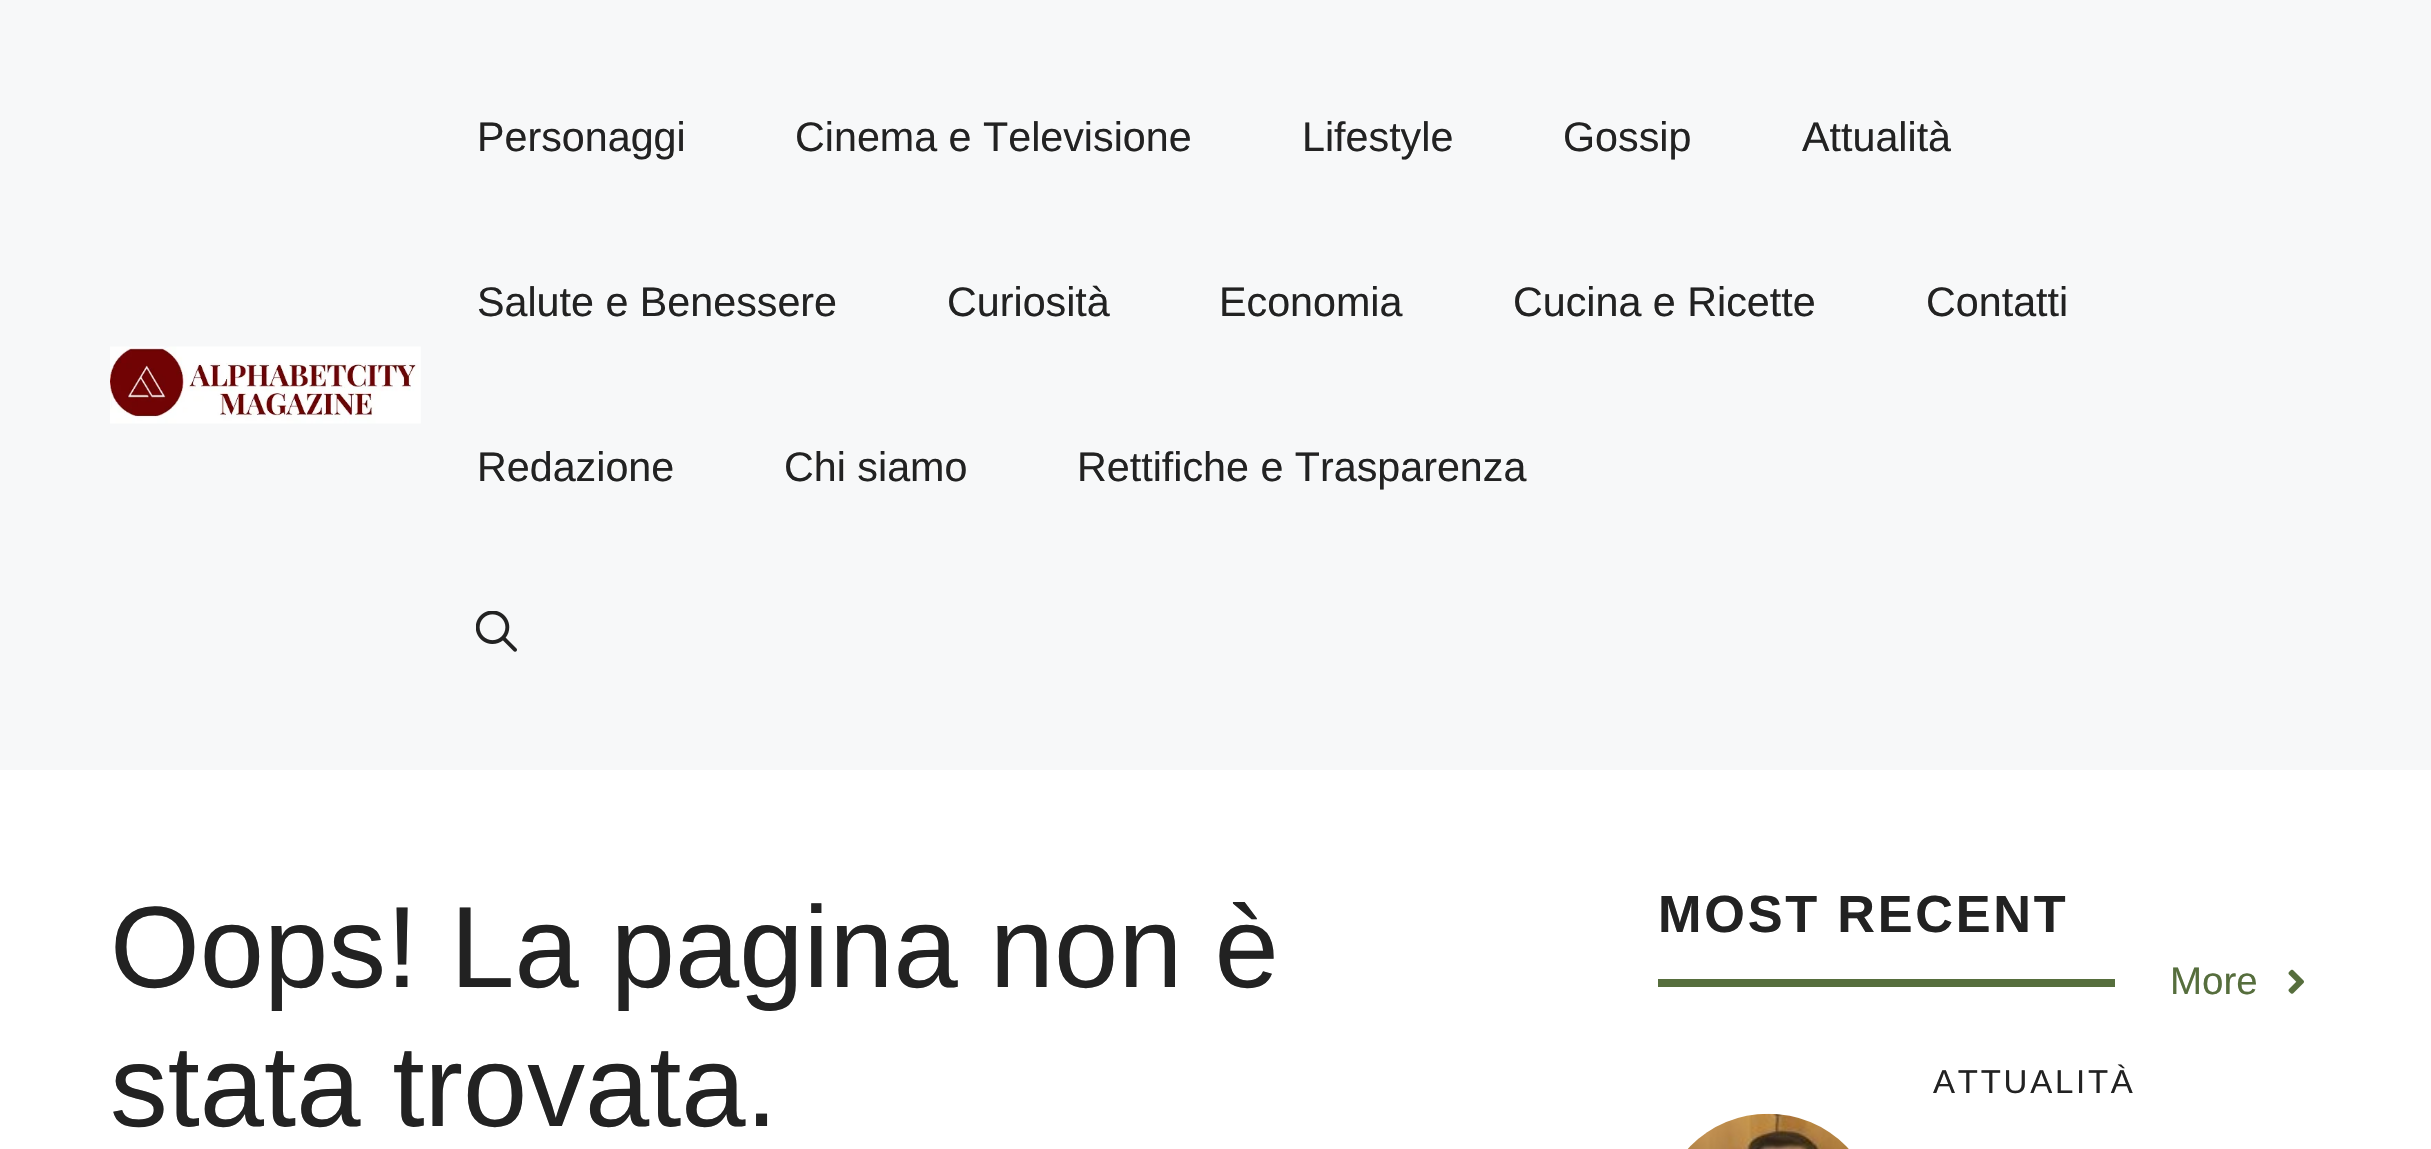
void draw(SkCanvas* c) {
SkPaint p;
p.setAntiAlias(true);
auto F=[&](const char* family, int weight, float size, bool italic = false){SkFontStyle style(weight, SkFontStyle::kNormal_Width,italic ? SkFontStyle::kItalic_Slant : SkFontStyle::kUpright_Slant);SkFont result(fontMgr->matchFamilyStyle(family, style), size);result.setSubpixel(true);return result;};
auto T=[&](const char* s, float x, float y, const SkFont& font){c->drawString(s, x, y, font, p);};
auto L=[&](const char* s, float x, float y, const SkFont& font, const SkPaint& ink, float letter, float word){std::vector<SkGlyphID> glyphs(font.countText(s, strlen(s), SkTextEncoding::kUTF8));std::vector<float> xs(glyphs.size());font.textToGlyphs(s, strlen(s), SkTextEncoding::kUTF8, glyphs);font.getXPos(glyphs, xs, x);float extra = 0;for (size_t i = 0; i < glyphs.size(); i++) {xs[i] += extra;extra += letter + word * (glyphs[i] == font.unicharToGlyph(' '));}c->drawTextBlob(SkTextBlob::MakeFromPosHGlyphs(glyphs, xs, y, font), 0, 0, ink);};
auto R=[&](float x, float y, float w, float h){c->drawRect(SkRect::MakeXYWH(x, y, w, h), p);};
auto I=[&](const char* path, float x, float y, float w, float h){auto image = SkImages::DeferredFromEncodedData(SkData::MakeFromFileName(path));c->drawImageRect(image, SkRect::MakeXYWH(x, y, w, h), SkSamplingOptions());};
c->clear(0xffffffff);
p.setColor(0xfff7f8f9);
R(0,0,2431,770);
I("1.png",110,346,311,78);
auto f1 = F("Liberation Sans",400,41.25);
p.setColor(0xff222222);
T("Personaggi",477,151,f1);
T("Cinema e Televisione",795,151,f1);
T("Lifestyle",1302,151,f1);
T("Gossip",1563,151,f1);
T("Attualità",1802,151,f1);
T("Salute e Benessere",477,316,f1);
T("Curiosità",947,316,f1);
T("Economia",1219,316,f1);
T("Cucina e Ricette",1513,316,f1);
T("Contatti",1926,316,f1);
T("Redazione",477,481,f1);
T("Chi siamo",784,481,f1);
T("Rettifiche e Trasparenza",1077,481,f1);
I("2.png",476,611,41,41);
auto f2 = F("Liberation Sans",400,115.5);
T("Oops! La pagina non è",110,987,f2);
T("stata trovata.",110,1126,f2);
auto f3 = F("Liberation Sans",700,52.25);
L("MOST RECENT",1658,932,f3,p,2.75,0);
p.setColor(0xff566e3d);
R(1658,979,457,8);
auto f4 = F("Liberation Sans",400,38.5);
T("More",2170,994,f4);
I("3.png",2288,969,16,25);
auto f5 = F("Liberation Sans",400,33);
p.setColor(0xff222222);
L("ATTUALITÀ",1933,1093,f5,p,2.75,0);
I("4.png",1687,1113,162,36);
}
